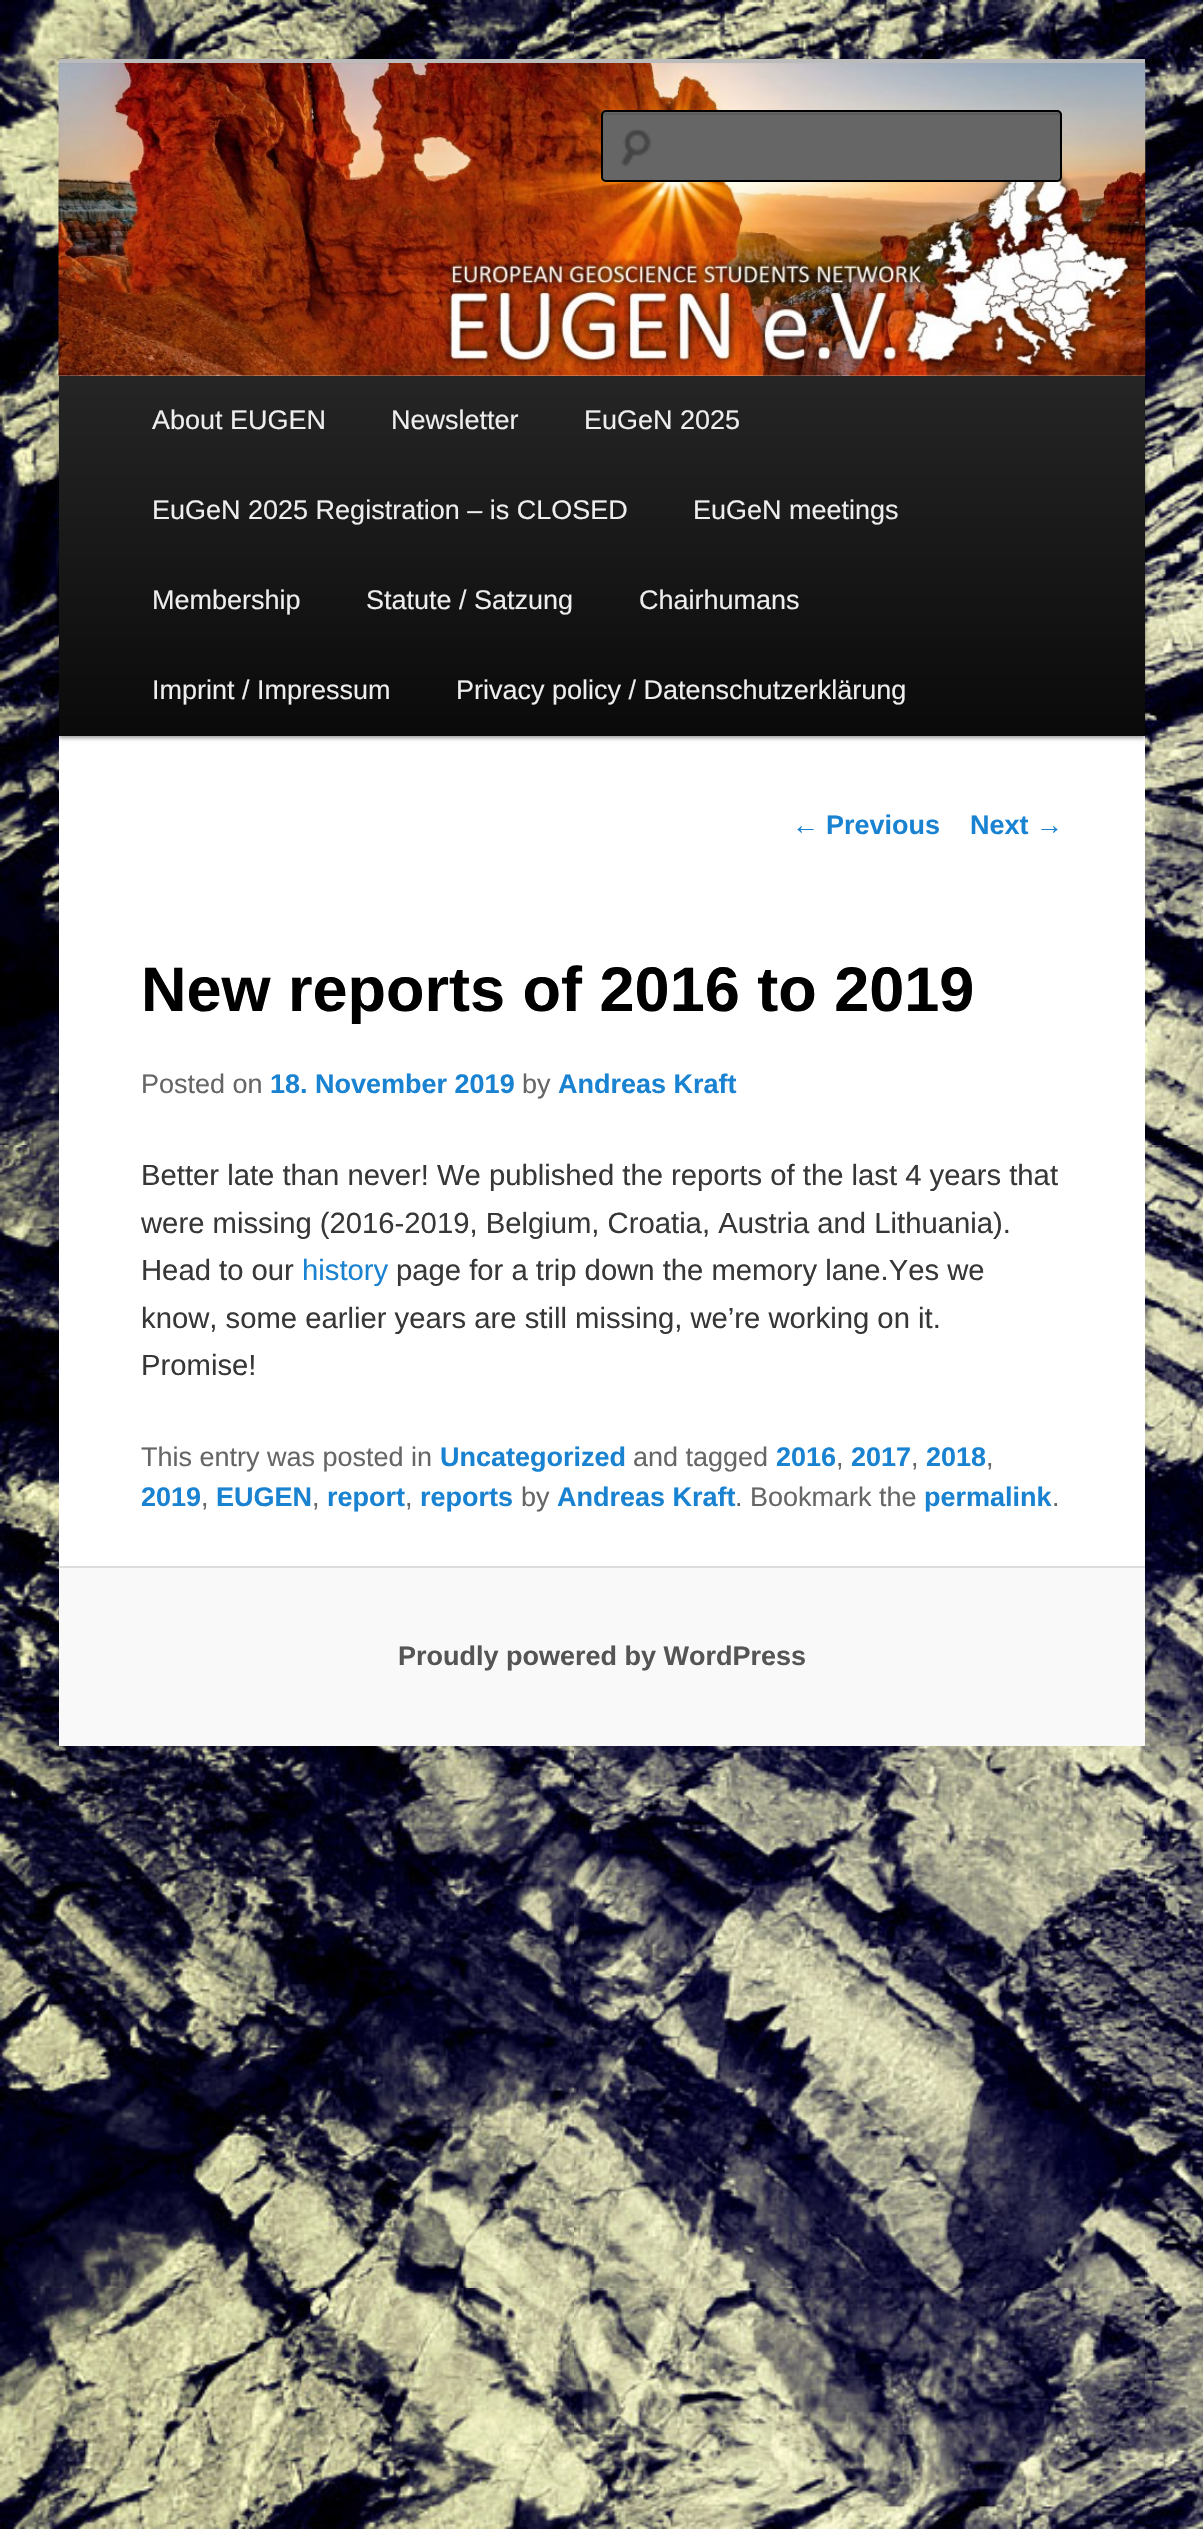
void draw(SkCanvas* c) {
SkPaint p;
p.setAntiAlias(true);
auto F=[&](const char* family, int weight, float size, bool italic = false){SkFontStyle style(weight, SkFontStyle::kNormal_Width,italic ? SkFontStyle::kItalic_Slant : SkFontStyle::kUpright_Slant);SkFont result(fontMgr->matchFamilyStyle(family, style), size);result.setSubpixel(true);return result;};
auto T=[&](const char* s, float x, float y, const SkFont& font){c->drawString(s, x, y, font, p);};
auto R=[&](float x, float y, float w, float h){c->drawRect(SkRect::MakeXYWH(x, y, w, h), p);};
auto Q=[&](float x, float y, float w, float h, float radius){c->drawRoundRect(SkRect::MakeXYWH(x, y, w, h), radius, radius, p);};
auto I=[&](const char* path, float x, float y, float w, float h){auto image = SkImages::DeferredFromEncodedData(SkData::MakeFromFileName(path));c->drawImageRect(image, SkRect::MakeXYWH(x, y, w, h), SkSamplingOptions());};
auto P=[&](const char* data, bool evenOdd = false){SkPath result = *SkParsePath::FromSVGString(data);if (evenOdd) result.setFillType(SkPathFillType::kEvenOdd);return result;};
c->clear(0xffffffff);
I("1.png",0,0,1203,2529);
p.setColor(0xffffffff);
R(59,375,1086,1191);
p.setColor(0xffbbbbbb);
R(59,59,1086,4);
p.setColor(0x66000000);
p.setMaskFilter(SkMaskFilter::MakeBlur(kNormal_SkBlurStyle, 2));
c->drawRect(SkRect::MakeXYWH(59,378,1086,360),p);
p.setMaskFilter(nullptr);
I("2.png",58,63,1088,313);
p.setColor(0xff666666);
Q(601,110,461,72,5);
I("3.png",621,129,30,38);
p.setColor(0xff5c5c5c);
c->drawPath(P("M605 115h453c1 0 2 1 2 2c0-2 0-4-2-4h-454l-1 1v3c0-1 1-2 2-2z"),p);
p.setStroke(true);
p.setStrokeWidth(2);
p.setColor(0xff000000);
c->drawRoundRect(SkRect::MakeXYWH(602,111,459,70),4,4,p);
p.setStroke(false);
{
const SkColor colors[] = {0xff252525,0xff0a0a0a};
const float stops[] = {0,1};
const SkPoint ends[] = {{602,376}, {602,736}};
p.setShader(SkGradientShader::MakeLinear(ends, colors, stops, 2, SkTileMode::kClamp));
p.setAlpha(255);
}
R(59,376,1086,360);
auto f1 = F("Liberation Sans",400,27);
p.setShader(nullptr);
p.setColor(0xffeeeeee);
T("About EUGEN",152,429,f1);
T("Newsletter",391,429,f1);
T("EuGeN 2025",584,429,f1);
T("EuGeN 2025 Registration – is CLOSED",152,519,f1);
T("EuGeN meetings",693,519,f1);
T("Membership",152,609,f1);
T("Statute / Satzung",366,609,f1);
T("Chairhumans",639,609,f1);
T("Imprint / Impressum",152,699,f1);
T("Privacy policy / Datenschutzerklärung",456,699,f1);
p.setColor(0xff1982d1);
T("←",792,834,f1);
auto f2 = F("Liberation Sans",700,27);
T("Previous",826,834,f2);
T("Next",970,834,f2);
T("→",1036,834,f1);
auto f3 = F("Liberation Sans",700,63);
p.setColor(0xff000000);
T("New reports of 2016 to 2019",141,1011,f3);
p.setColor(0xff666666);
T("Posted on",141,1093,f1);
p.setColor(0xff1982d1);
T("18. November 2019",270,1093,f2);
p.setColor(0xff666666);
T("by",522,1093,f1);
p.setColor(0xff1982d1);
T("Andreas Kraft",558,1093,f2);
auto f4 = F("Liberation Sans",400,29.25);
p.setColor(0xff373737);
T("Better late than never! We published the reports of the last 4 years that",141,1185,f4);
T("were missing (2016-2019, Belgium, Croatia, Austria and Lithuania).",141,1233,f4);
T("Head to our",141,1280,f4);
p.setColor(0xff1982d1);
T("history",302,1280,f4);
p.setColor(0xff373737);
T("page for a trip down the memory lane.Yes we",396,1280,f4);
T("know, some earlier years are still missing, we’re working on it.",141,1328,f4);
T("Promise!",141,1375,f4);
p.setColor(0xff666666);
T("This entry was posted in",141,1466,f1);
p.setColor(0xff1982d1);
T("Uncategorized",440,1466,f2);
p.setColor(0xff666666);
T("and tagged",633,1466,f1);
p.setColor(0xff1982d1);
T("2016",776,1466,f2);
p.setColor(0xff666666);
T(",",836,1466,f1);
p.setColor(0xff1982d1);
T("2017",851,1466,f2);
p.setColor(0xff666666);
T(",",911,1466,f1);
p.setColor(0xff1982d1);
T("2018",926,1466,f2);
p.setColor(0xff666666);
T(",",986,1466,f1);
p.setColor(0xff1982d1);
T("2019",141,1506,f2);
p.setColor(0xff666666);
T(",",201,1506,f1);
p.setColor(0xff1982d1);
T("EUGEN",216,1506,f2);
p.setColor(0xff666666);
T(",",312,1506,f1);
p.setColor(0xff1982d1);
T("report",327,1506,f2);
p.setColor(0xff666666);
T(",",405,1506,f1);
p.setColor(0xff1982d1);
T("reports",420,1506,f2);
p.setColor(0xff666666);
T("by",521,1506,f1);
p.setColor(0xff1982d1);
T("Andreas Kraft",557,1506,f2);
p.setColor(0xff666666);
T(". Bookmark the",735,1506,f1);
p.setColor(0xff1982d1);
T("permalink",924,1506,f2);
p.setColor(0xff666666);
T(".",1052,1506,f1);
p.setColor(0xfff9f9f9);
R(59,1568,1086,178);
p.setColor(0xffdddddd);
R(59,1566,1086,2);
p.setColor(0xff555555);
T("Proudly powered by WordPress",398,1665,f2);
}
